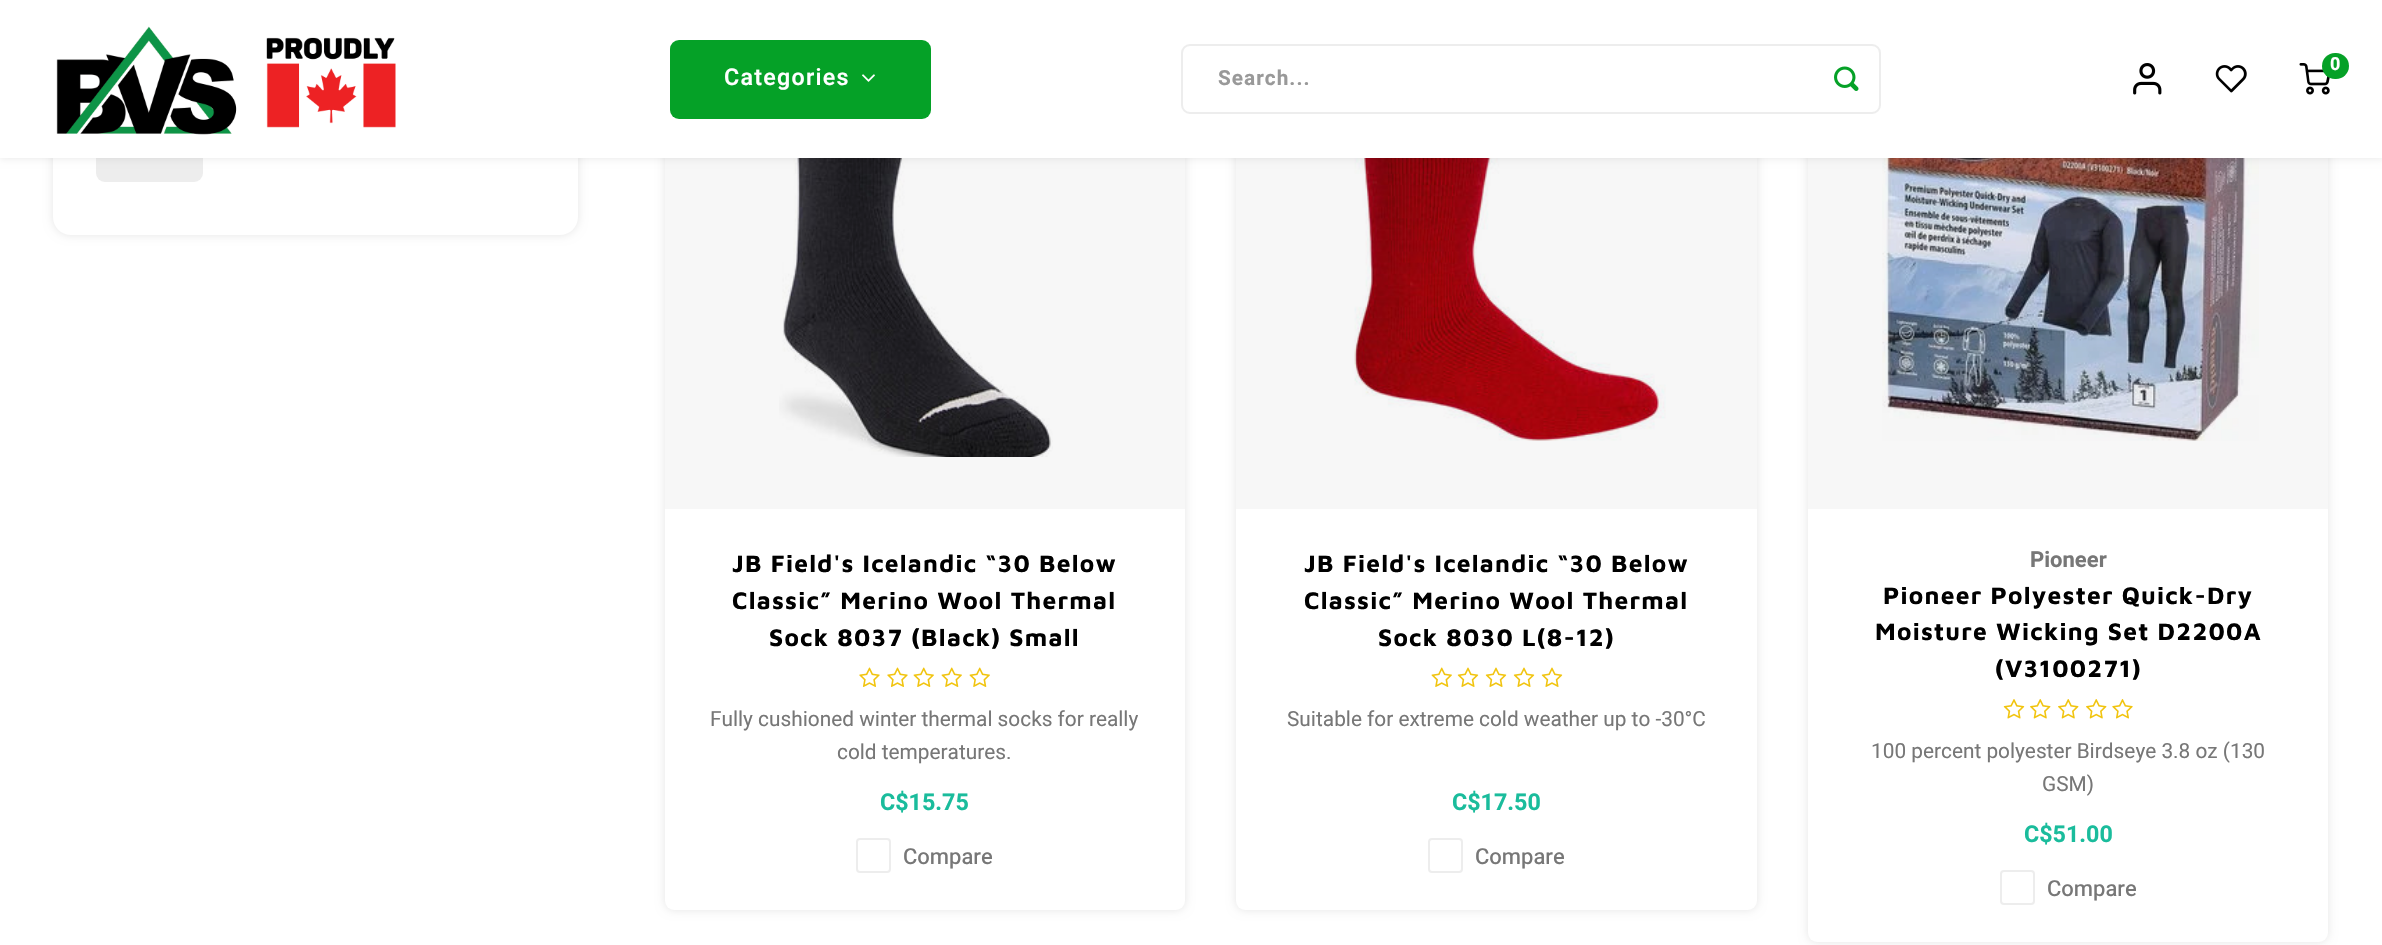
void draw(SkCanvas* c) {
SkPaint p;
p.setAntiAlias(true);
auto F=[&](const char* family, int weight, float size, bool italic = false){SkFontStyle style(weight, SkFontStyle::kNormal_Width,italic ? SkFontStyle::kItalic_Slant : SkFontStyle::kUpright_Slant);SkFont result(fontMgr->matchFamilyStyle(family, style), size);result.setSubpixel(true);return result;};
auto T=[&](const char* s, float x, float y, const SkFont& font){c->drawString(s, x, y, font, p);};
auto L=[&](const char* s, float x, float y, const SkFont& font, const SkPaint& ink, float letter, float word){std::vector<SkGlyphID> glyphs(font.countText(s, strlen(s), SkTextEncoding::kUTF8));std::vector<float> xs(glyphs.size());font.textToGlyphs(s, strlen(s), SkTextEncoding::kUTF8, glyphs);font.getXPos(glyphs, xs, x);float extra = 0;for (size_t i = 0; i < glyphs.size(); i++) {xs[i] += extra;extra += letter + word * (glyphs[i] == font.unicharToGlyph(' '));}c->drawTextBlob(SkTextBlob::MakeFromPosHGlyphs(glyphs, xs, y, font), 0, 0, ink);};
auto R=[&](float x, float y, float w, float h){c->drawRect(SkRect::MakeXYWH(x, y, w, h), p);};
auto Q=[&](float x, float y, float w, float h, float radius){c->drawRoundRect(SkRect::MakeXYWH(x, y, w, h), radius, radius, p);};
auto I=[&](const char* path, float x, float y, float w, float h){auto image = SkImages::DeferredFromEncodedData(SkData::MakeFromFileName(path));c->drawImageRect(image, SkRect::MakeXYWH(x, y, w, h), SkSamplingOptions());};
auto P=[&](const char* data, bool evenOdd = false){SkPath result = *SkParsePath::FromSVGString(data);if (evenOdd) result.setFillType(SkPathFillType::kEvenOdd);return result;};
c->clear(0xffffffff);
c->save();
c->clipPath(P("M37 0h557v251h-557zm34-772h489c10 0 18 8 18 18v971c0 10-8 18-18 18h-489c-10 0-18-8-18-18v-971c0-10 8-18 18-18z",true),true);
p.setColor(0x1a000000);
p.setMaskFilter(SkMaskFilter::MakeBlur(kNormal_SkBlurStyle, 5));
c->drawRoundRect(SkRect::MakeXYWH(53,-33,525,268),18,18,p);
p.setMaskFilter(nullptr);
c->restore();
p.setColor(0xffededed);
Q(96,130,107,52,9);
p.setColor(0x1a000000);
p.setMaskFilter(SkMaskFilter::MakeBlur(kNormal_SkBlurStyle, 5));
c->drawRoundRect(SkRect::MakeXYWH(665,-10,520,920),9,9,p);
p.setMaskFilter(nullptr);
p.setColor(0xffffffff);
Q(665,-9,520,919,9);
I("7.png",779,158,274,299);
p.setColor(0x08000000);
R(665,158,520,351);
p.setColor(0x1a000000);
p.setMaskFilter(SkMaskFilter::MakeBlur(kNormal_SkBlurStyle, 5));
c->drawRoundRect(SkRect::MakeXYWH(1236,-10,521,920),9,9,p);
p.setMaskFilter(nullptr);
p.setColor(0xffffffff);
Q(1236,-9,521,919,9);
p.setColor(0xfff7f7f7);
R(1236,158,521,351);
I("10.png",1352,158,314,283);
p.setColor(0x1a000000);
p.setMaskFilter(SkMaskFilter::MakeBlur(kNormal_SkBlurStyle, 5));
c->drawRoundRect(SkRect::MakeXYWH(1808,-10,520,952),9,9,p);
p.setMaskFilter(nullptr);
p.setColor(0xffffffff);
Q(1808,-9,520,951,9);
I("12.png",1882,158,377,283);
p.setColor(0x08000000);
R(1808,158,520,351);
p.setColor(0x14000000);
p.setMaskFilter(SkMaskFilter::MakeBlur(kNormal_SkBlurStyle, 3.5));
c->drawRect(SkRect::MakeXYWH(0,2,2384,157),p);
p.setMaskFilter(nullptr);
p.setColor(0xffffffff);
R(0,0,2382,158);
I("1.png",56,26,340,109);
I("2.png",2133,63,29,32);
I("3.png",2215,65,32,28);
I("4.png",2299,63,31,32);
p.setColor(0xff05a127);
Q(2322,53,27,26,13);
auto f1 = F("Heebo",700,18);
p.setColor(0xffffffff);
T("0",2330,70,f1);
p.setColor(0xff05a127);
Q(670,40,261,79,9);
auto f2 = F("Heebo",600,23.25);
p.setColor(0xffffffff);
L("Categories",724,85,f2,p,1.25,0);
I("5.png",862,74,13,8);
p.setStroke(true);
p.setStrokeWidth(2);
p.setColor(0xffededed);
c->drawRoundRect(SkRect::MakeXYWH(1182,45,698,68),8,8,p);
auto f3 = F("Heebo",700,20.8);
p.setStroke(false);
p.setColor(0xff999999);
L("Search...",1218,85,f3,p,1,0);
I("6.png",1834,66,25,25);
auto f4 = F("Maven Pro",700,24.5);
p.setColor(0xff000000);
L("JB Field's Icelandic “30 Below",732,572,f4,p,1.25,0);
L("Classic” Merino Wool Thermal",732,609,f4,p,1.25,0);
L("Sock 8037 (Black) Small",769,646,f4,p,1.25,0);
I("8.png",859,667,21,20);
I("8.png",887,667,21,20);
I("9.png",913,667,21,20);
I("9.png",941,667,21,20);
I("9.png",969,667,21,20);
auto f5 = F("Heebo",400,20.8);
p.setColor(0xff777777);
T("Fully cushioned winter thermal socks for really",710,726,f5);
T("cold temperatures.",837,759,f5);
auto f6 = F("Heebo",700,23.25);
p.setColor(0xff1abc9c);
T("C$15.75",880,810,f6);
p.setStroke(true);
p.setColor(0xffededed);
c->drawRoundRect(SkRect::MakeXYWH(857,839,33,33),3,3,p);
auto f7 = F("Heebo",500,22);
p.setStroke(false);
p.setColor(0xff777777);
T("Compare",903,864,f7);
p.setColor(0xff000000);
L("JB Field's Icelandic “30 Below",1304,572,f4,p,1.25,0);
L("Classic” Merino Wool Thermal",1304,609,f4,p,1.25,0);
L("Sock 8030 L(8-12)",1378,646,f4,p,1.25,0);
I("9.png",1431,667,21,20);
I("11.png",1457,667,22,20);
I("11.png",1485,667,22,20);
I("11.png",1513,667,22,20);
I("11.png",1541,667,22,20);
p.setColor(0xff777777);
T("Suitable for extreme cold weather up to -30°C",1287,726,f5);
p.setColor(0xff1abc9c);
T("C$17.50",1452,810,f6);
p.setStroke(true);
p.setColor(0xffededed);
c->drawRoundRect(SkRect::MakeXYWH(1429,839,33,33),3,3,p);
p.setStroke(false);
p.setColor(0xff777777);
T("Compare",1475,864,f7);
auto f8 = F("Heebo",700,22);
T("Pioneer",2030,567,f8);
p.setColor(0xff000000);
L("Pioneer Polyester Quick-Dry",1883,604,f4,p,1.25,0);
L("Moisture Wicking Set D2200A",1875,640,f4,p,1.25,0);
L("(V3100271)",1995,677,f4,p,1.25,0);
I("13.png",2003,699,22,20);
I("14.png",2030,699,21,20);
I("14.png",2058,699,21,20);
I("14.png",2086,699,21,20);
I("15.png",2112,699,21,20);
p.setColor(0xff777777);
T("100 percent polyester Birdseye 3.8 oz (130",1871,758,f5);
T("GSM)",2042,791,f5);
p.setColor(0xff1abc9c);
T("C$51.00",2024,842,f6);
p.setStroke(true);
p.setColor(0xffededed);
c->drawRoundRect(SkRect::MakeXYWH(2001,871,33,33),3,3,p);
p.setStroke(false);
p.setColor(0xff777777);
T("Compare",2047,896,f7);
}
